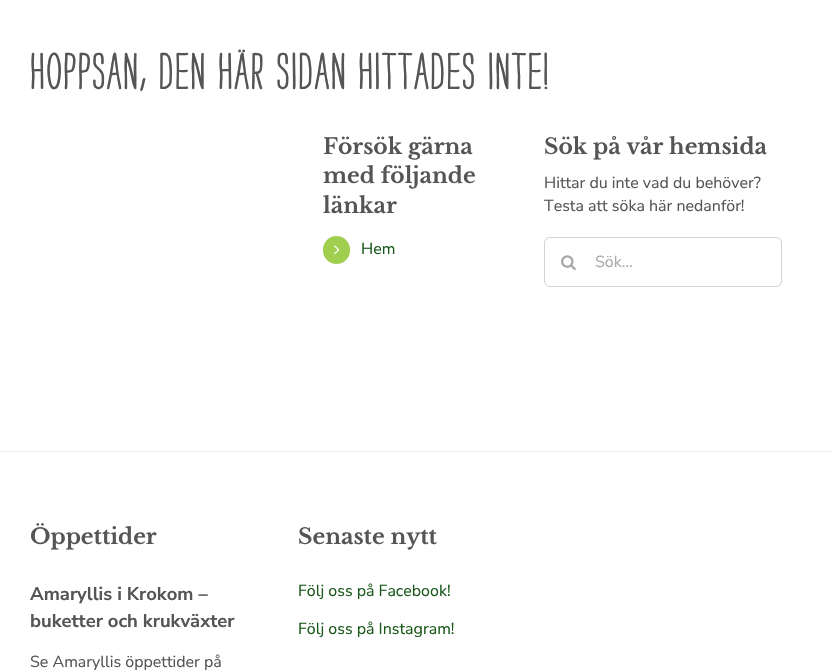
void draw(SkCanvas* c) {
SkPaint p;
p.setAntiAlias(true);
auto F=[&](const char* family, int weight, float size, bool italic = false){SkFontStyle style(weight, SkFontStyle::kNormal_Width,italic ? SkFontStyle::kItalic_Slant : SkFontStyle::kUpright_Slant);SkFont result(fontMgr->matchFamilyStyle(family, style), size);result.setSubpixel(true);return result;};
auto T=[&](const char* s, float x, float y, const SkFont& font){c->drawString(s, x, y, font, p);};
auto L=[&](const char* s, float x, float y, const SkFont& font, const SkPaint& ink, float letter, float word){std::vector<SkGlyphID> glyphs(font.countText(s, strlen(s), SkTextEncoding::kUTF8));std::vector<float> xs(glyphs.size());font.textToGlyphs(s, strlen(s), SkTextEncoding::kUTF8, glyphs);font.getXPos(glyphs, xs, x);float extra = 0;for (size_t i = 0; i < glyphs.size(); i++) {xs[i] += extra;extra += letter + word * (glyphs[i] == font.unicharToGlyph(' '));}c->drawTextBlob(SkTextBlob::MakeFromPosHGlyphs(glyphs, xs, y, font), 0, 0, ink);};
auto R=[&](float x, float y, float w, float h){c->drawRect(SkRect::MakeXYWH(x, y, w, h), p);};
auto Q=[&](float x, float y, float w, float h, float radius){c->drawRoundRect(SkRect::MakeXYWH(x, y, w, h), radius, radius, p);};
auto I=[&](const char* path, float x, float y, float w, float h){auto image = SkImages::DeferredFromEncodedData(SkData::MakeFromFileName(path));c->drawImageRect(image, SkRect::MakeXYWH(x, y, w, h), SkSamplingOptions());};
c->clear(0xffffffff);
auto f1 = F("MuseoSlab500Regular",700,55.25);
p.setColor(0xff555555);
L("Hoppsan, den här sidan hittades inte!",30,89,f1,p,3,0);
auto f2 = F("Libre Baskerville",700,21.75);
T("Försök gärna",323,154,f2);
T("med följande",323,183,f2);
T("länkar",323,213,f2);
p.setColor(0xffa0ce4e);
Q(323,236,27,28,13.5);
I("1.png",334,245,6,10);
auto f3 = F("Nunito Sans",400,16);
p.setColor(0xff1a591b);
T("Hem",361,254,f3);
p.setColor(0xff555555);
T("Sök på vår hemsida",544,154,f2);
T("Hittar du inte vad du behöver?",544,188,f3);
T("Testa att söka här nedanför!",544,211,f3);
p.setStroke(true);
p.setStrokeWidth(1);
p.setColor(0xffd2d2d2);
c->drawRoundRect(SkRect::MakeXYWH(544.5,237.5,237,49),5.5,5.5,p);
I("2.png",561,255,15,16);
p.setStroke(false);
p.setColor(0xffaaa9a9);
T("Sök...",595,267,f3);
p.setColor(0xffeeeeee);
R(0,451,833,1);
p.setColor(0xff555555);
T("Öppettider",30,544,f2);
auto f4 = F("Nunito Sans",700,18.4);
T("Amaryllis i Krokom –",30,600,f4);
T("buketter och krukväxter",30,627,f4);
T("Se Amaryllis öppettider på",30,667,f3);
T("Senaste nytt",298,544,f2);
p.setColor(0xff1a591b);
T("Följ oss på Facebook!",298,596,f3);
T("Följ oss på Instagram!",298,634,f3);
}
